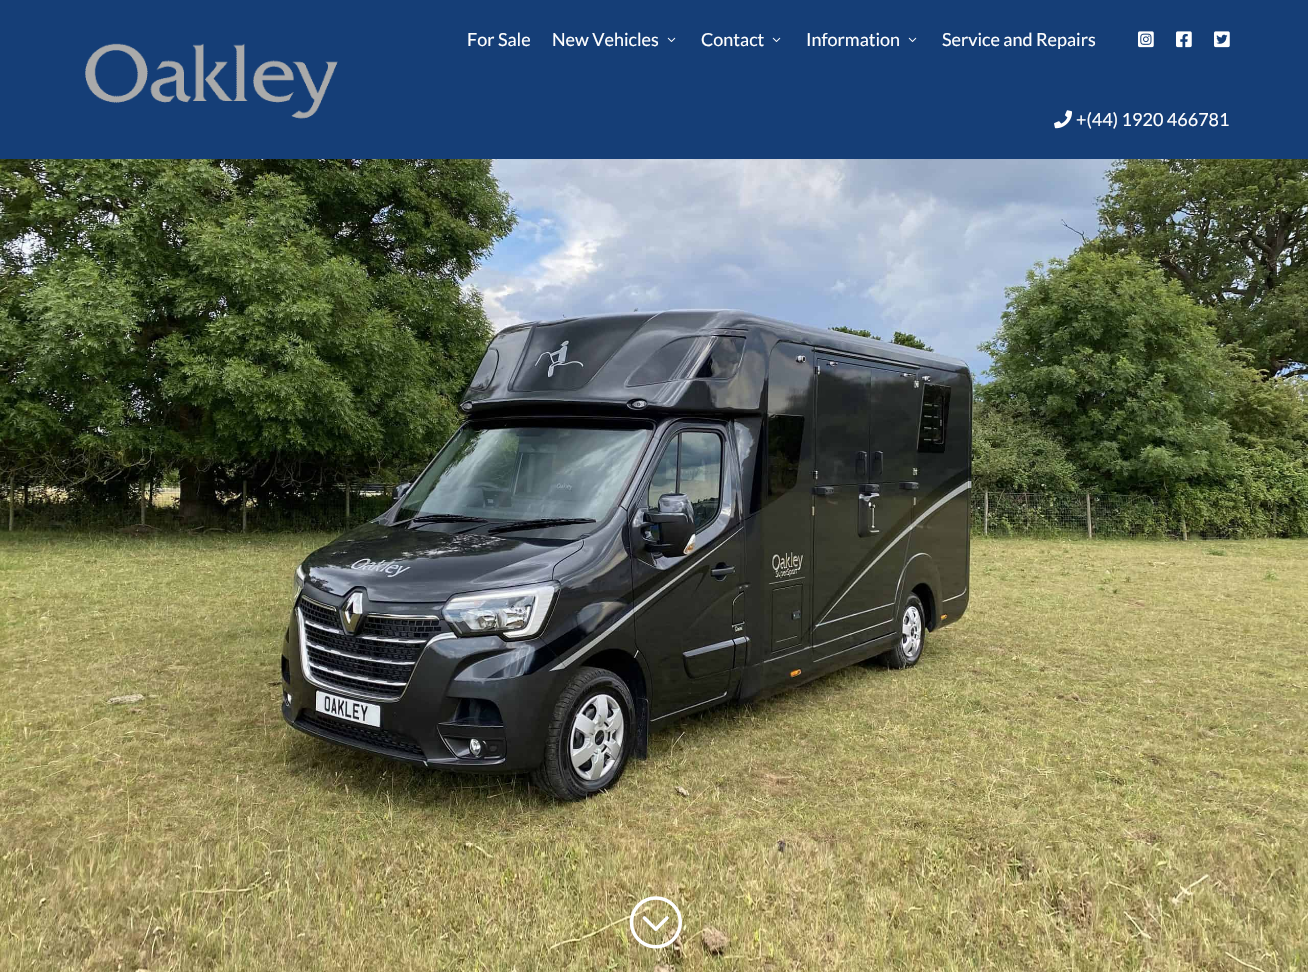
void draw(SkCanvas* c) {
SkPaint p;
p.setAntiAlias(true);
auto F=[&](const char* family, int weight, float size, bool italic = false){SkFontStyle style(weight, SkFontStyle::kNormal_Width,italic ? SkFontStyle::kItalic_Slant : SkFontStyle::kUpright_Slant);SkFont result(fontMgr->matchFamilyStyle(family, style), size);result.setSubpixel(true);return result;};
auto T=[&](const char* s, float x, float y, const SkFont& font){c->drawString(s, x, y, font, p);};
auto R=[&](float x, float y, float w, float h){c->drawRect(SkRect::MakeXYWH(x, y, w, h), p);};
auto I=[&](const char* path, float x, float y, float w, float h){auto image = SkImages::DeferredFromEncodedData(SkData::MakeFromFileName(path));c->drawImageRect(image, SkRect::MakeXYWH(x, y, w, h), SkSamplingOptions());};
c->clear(0xff153e77);
I("1.png",85,43,253,76);
auto f1 = F("Lato",400,18);
p.setColor(0xffffffff);
T("For Sale",467,46,f1);
T("New Vehicles",552,46,f1);
I("2.png",667,37,9,5);
T("Contact",701,46,f1);
I("2.png",772,37,9,5);
T("Information",806,46,f1);
I("2.png",908,37,9,5);
T("Service and Repairs",942,46,f1);
I("3.png",1138,31,16,17);
I("4.png",1176,31,16,17);
I("5.png",1214,31,16,17);
I("6.png",1054,110,18,19);
T("+(44) 1920 466781",1076,126,f1);
I("7.png",0,159,1308,813);
I("8.png",629,896,53,53);
R(0,972,1308,1);
}
